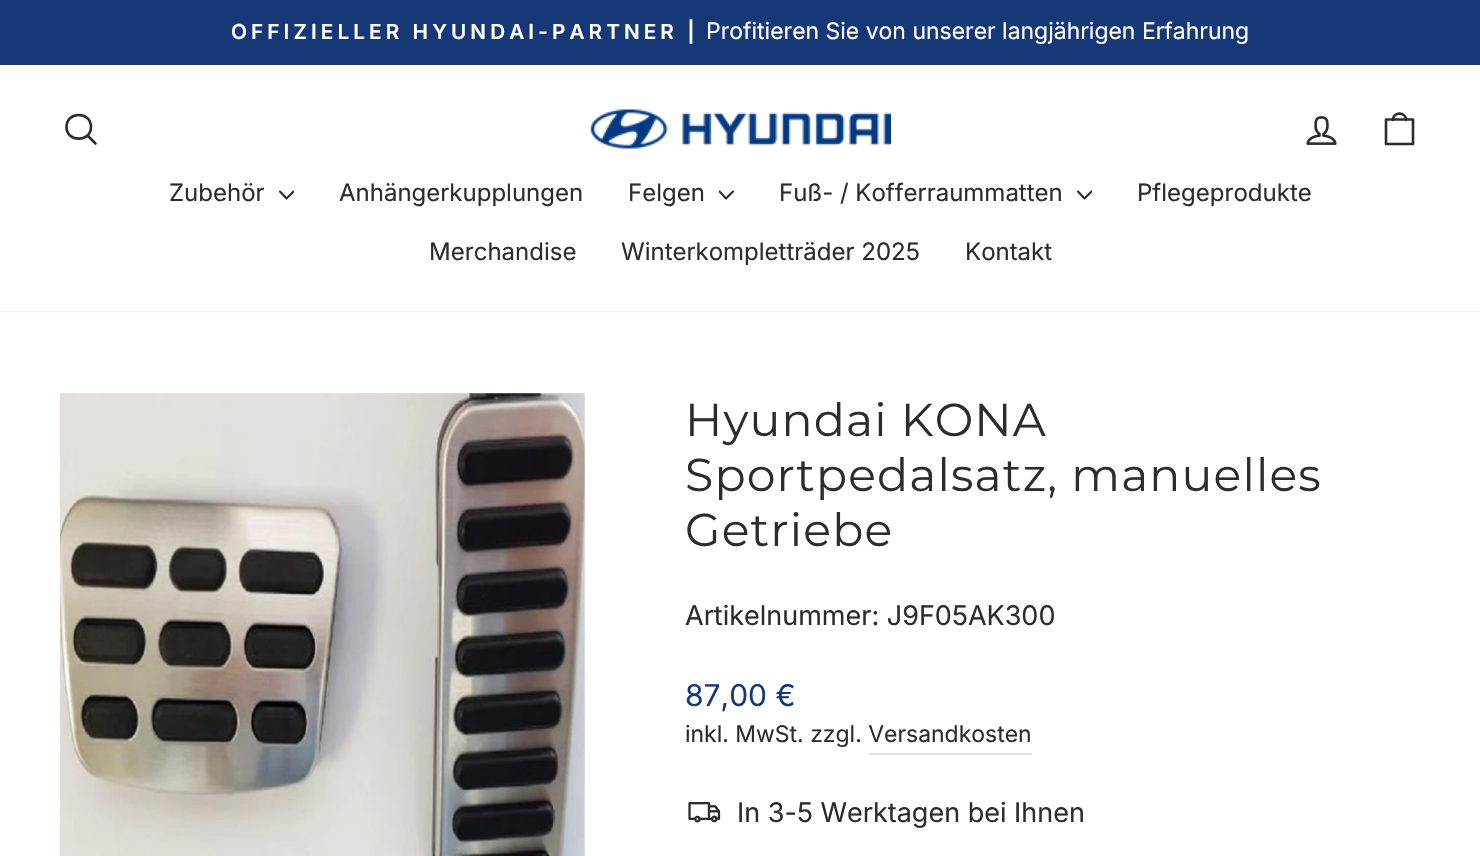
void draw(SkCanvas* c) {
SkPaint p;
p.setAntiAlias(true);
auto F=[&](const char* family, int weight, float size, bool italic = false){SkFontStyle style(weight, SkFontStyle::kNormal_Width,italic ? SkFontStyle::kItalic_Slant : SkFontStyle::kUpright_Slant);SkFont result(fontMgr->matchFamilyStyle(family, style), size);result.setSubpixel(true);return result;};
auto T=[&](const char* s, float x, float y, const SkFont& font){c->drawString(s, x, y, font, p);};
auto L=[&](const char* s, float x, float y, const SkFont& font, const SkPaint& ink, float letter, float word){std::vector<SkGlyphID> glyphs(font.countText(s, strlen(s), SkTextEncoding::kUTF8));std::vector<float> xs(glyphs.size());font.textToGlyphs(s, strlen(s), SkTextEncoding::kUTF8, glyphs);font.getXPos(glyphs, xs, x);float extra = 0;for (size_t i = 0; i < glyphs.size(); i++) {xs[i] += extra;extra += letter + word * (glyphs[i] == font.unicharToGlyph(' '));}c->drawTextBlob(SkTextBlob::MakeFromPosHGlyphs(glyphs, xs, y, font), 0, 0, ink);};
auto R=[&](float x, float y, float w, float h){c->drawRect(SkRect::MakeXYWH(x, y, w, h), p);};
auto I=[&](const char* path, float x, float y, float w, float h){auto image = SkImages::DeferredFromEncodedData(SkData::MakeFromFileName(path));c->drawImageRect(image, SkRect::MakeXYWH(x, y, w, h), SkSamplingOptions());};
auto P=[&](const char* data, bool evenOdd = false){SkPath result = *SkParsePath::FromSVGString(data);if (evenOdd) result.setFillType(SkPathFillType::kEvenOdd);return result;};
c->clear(0xffffffff);
p.setColor(0xff173876);
R(0,0,1480,65);
auto f1 = F("Inter",600,20.7);
p.setColor(0xffffffff);
L("OFFIZIELLER HYUNDAI-PARTNER |",231,39,f1,p,4.1,0);
auto f2 = F("Inter",400,22.95);
T("Profitieren Sie von unserer langjährigen Erfahrung",706,39,f2);
p.setColor(0x33000000);
p.setMaskFilter(SkMaskFilter::MakeBlur(kNormal_SkBlurStyle, 1));
c->drawRect(SkRect::MakeXYWH(0,65,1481,246),p);
p.setMaskFilter(nullptr);
p.setColor(0xffffffff);
R(0,65,1480,246);
p.setStroke(true);
p.setStrokeWidth(2.6);
p.setStrokeCap(SkPaint::kRound_Cap);
p.setStrokeJoin(SkPaint::kRound_Join);
p.setColor(0xff2c2c2c);
c->drawPath(P("M91 127c0 15.5-24.5 15.5-24.5 0c0-16 24.5-16 24.5 0zm4.5 16.5l-8-8"),p);
I("1.png",590,109,301,40);
I("2.png",1306,116,31,29);
c->drawPath(P("M1386 119.5h27v24.5h-27zm7 .5c0-8.5 13-8.5 13 0"),p);
auto f3 = F("Inter",400,24);
p.setStroke(false);
T("Zubehör",169,201,f3);
c->save();
c->clipRect(SkRect::MakeXYWH(279,188,15,15));
p.setStroke(true);
p.setStrokeWidth(2.1);
c->drawPath(P("M280 191.5l6.5 7l7-7"),p);
c->restore();
p.setStroke(false);
T("Anhängerkupplungen",339,201,f3);
T("Felgen",628,201,f3);
c->save();
c->clipRect(SkRect::MakeXYWH(719,188,15,15));
p.setStroke(true);
c->drawPath(P("M719.5 191.5l6.5 7l7-7"),p);
c->restore();
p.setStroke(false);
T("Fuß- / Kofferraummatten",779,201,f3);
c->save();
c->clipRect(SkRect::MakeXYWH(1077,188,15,15));
p.setStroke(true);
c->drawPath(P("M1078 191.5l6.5 7l7-7"),p);
c->restore();
p.setStroke(false);
T("Pflegeprodukte",1137,201,f3);
T("Merchandise",429,260,f3);
T("Winterkompletträder 2025",621,260,f3);
T("Kontakt",965,260,f3);
I("3.png",60,393,525,463);
auto f4 = F("Montserrat",400,45.9);
L("Hyundai KONA",685,436,f4,p,1.15,0);
L("Sportpedalsatz, manuelles",685,491,f4,p,1.15,0);
L("Getriebe",685,546,f4,p,1.15,0);
auto f5 = F("Inter",400,27);
T("Artikelnummer: J9F05AK300",685,625,f5);
auto f6 = F("Inter",400,30);
p.setColor(0xff173876);
T("87,00 €",685,706,f6);
p.setColor(0xff2c2c2c);
T("inkl. MwSt. zzgl. Versandkosten",685,742,f2);
p.setColor(0xffdfdfdf);
R(869,753,163,2);
I("4.png",688,802,33,21);
p.setColor(0xff2c2c2c);
T("In 3-5 Werktagen bei Ihnen",737,822,f5);
}
